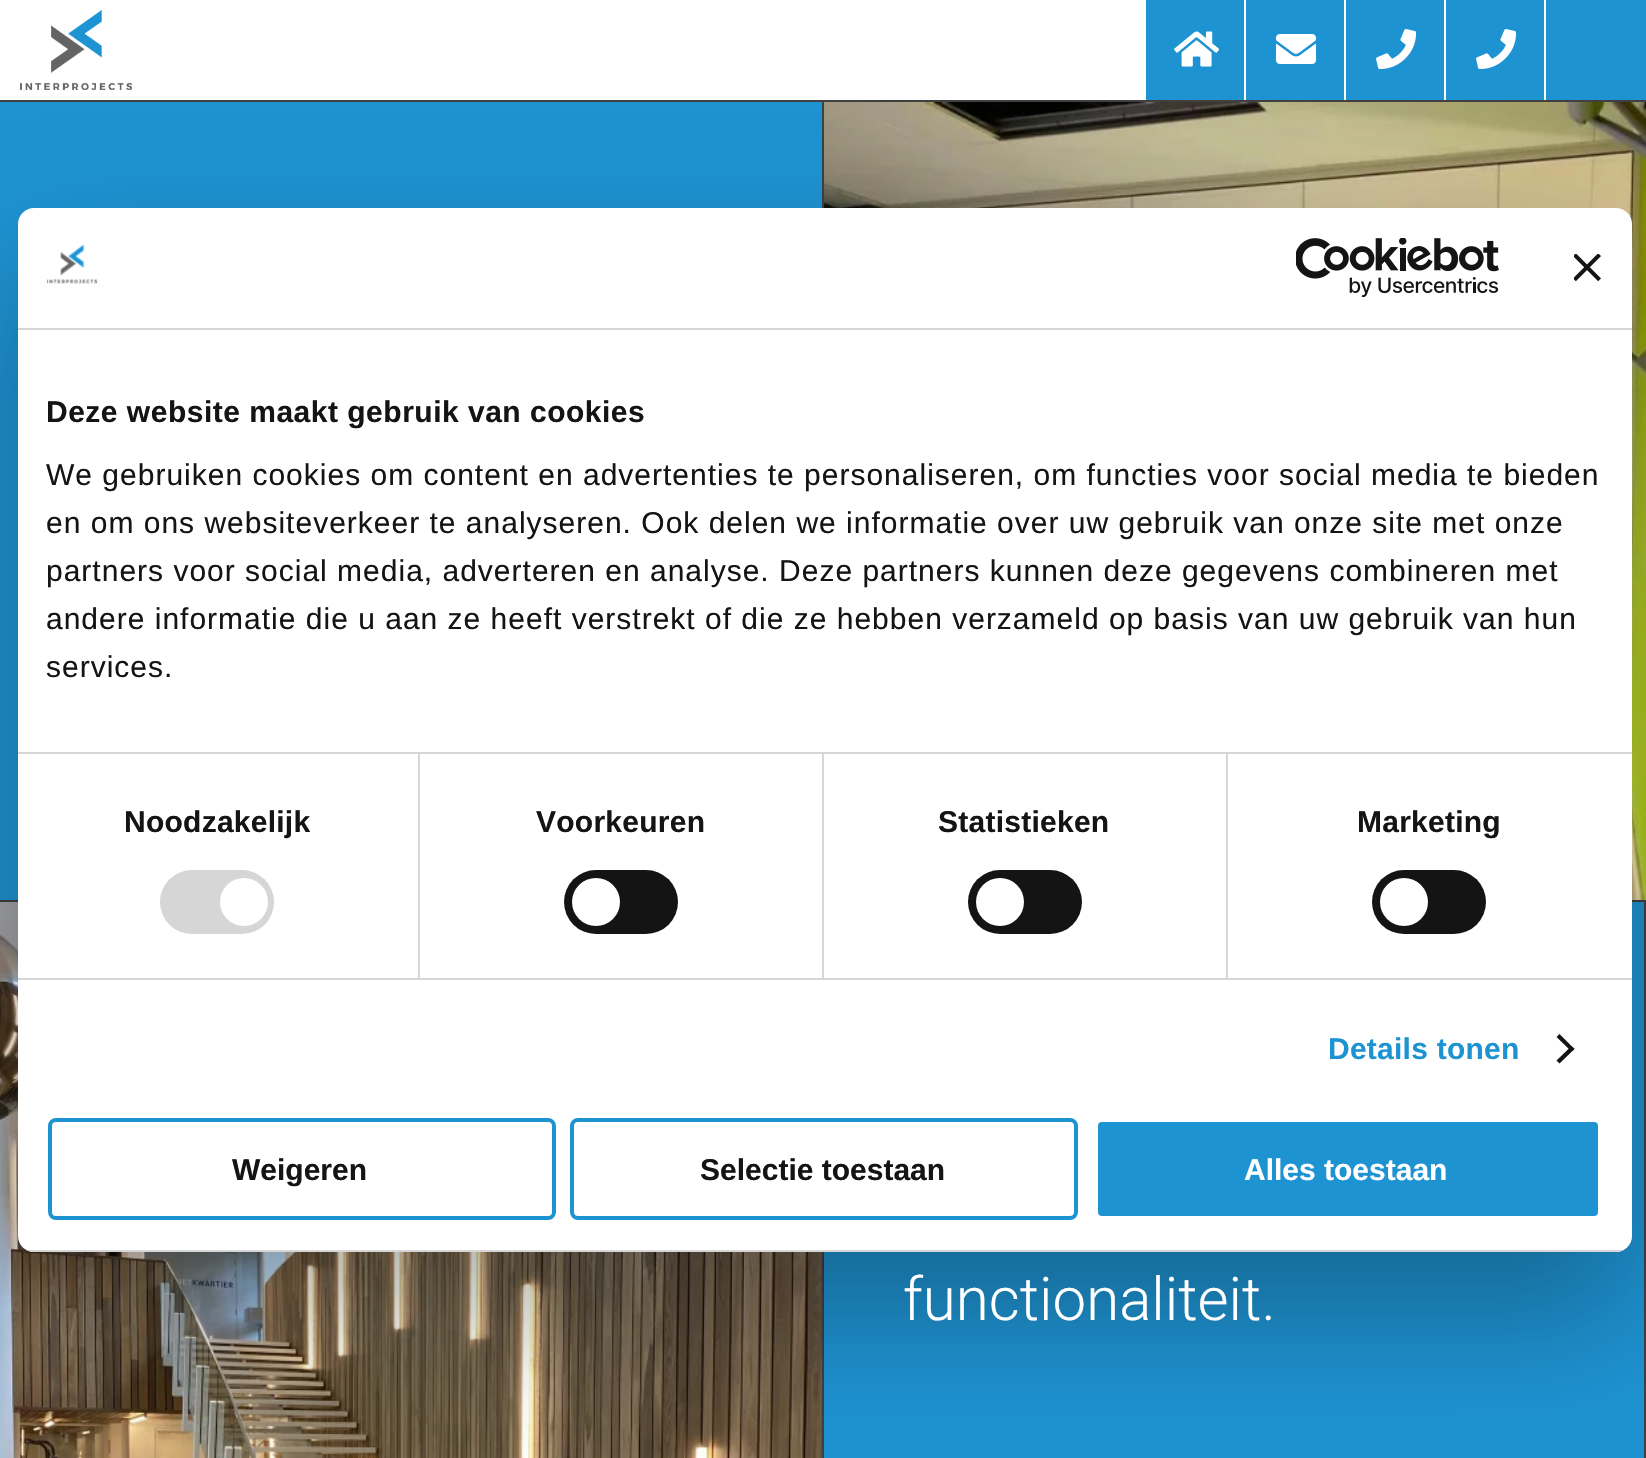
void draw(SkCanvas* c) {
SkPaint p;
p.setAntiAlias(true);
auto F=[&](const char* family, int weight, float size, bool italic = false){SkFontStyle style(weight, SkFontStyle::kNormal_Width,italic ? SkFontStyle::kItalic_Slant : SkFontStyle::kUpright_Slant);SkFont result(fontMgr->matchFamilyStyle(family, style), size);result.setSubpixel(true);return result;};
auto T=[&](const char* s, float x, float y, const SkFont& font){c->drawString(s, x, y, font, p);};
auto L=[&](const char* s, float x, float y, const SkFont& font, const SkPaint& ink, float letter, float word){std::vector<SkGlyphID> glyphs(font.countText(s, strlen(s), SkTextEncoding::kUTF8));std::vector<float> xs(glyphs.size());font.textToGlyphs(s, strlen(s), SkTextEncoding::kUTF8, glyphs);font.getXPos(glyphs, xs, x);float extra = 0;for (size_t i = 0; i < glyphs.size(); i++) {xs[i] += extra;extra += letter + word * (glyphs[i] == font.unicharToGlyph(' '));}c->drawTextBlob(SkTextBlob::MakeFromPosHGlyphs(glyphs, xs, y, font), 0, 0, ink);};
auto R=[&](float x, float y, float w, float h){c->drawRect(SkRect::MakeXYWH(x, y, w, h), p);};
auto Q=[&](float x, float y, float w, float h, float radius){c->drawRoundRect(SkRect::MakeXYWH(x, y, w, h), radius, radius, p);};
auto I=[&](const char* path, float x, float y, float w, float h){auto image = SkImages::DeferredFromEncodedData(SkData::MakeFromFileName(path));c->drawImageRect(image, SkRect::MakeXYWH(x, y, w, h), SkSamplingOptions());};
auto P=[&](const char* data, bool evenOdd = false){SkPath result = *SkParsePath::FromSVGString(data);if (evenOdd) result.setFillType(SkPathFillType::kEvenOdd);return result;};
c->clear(0xffffffff);
I("4.png",20,10,112,80);
p.setColor(0xff1e93d2);
R(1146,0,98,100);
R(1246,0,98,100);
R(1346,0,98,100);
I("7.png",1376,29,41,40);
R(1446,0,98,100);
I("7.png",1476,29,41,40);
R(1546,0,100,100);
p.setColor(0xff404040);
R(0,100,1646,2);
p.setColor(0xff1e93d2);
R(0,102,822,798);
p.setColor(0xff404040);
R(822,102,2,106);
R(0,900,18,2);
R(1632,900,14,2);
I("8.png",824,102,822,798);
R(822,1252,2,206);
I("9.png",0,902,822,556);
p.setColor(0xff1e93d2);
R(824,902,820,556);
p.setColor(0xff404040);
R(1644,902,2,556);
p.setColor(0x4d000000);
p.setMaskFilter(SkMaskFilter::MakeBlur(kNormal_SkBlurStyle, 68));
c->drawRoundRect(SkRect::MakeXYWH(18,272,1614,1044),16,16,p);
p.setMaskFilter(nullptr);
p.setColor(0xffffffff);
Q(18,208,1614,1044,16);
p.setColor(0xffd6d6d6);
R(18,328,1614,2);
I("1.png",46,244,52,40);
I("2.png",1296,238,203,60);
I("3.png",1574,254,27,28);
R(18,752,1614,2);
auto f1 = F("Liberation Sans",700,30);
p.setColor(0xff141414);
L("Deze website maakt gebruik van cookies",46,422,f1,p,.5,0);
auto f2 = F("Liberation Sans",400,30);
L("We gebruiken cookies om content en advertenties te personaliseren, om functies voor social media te bieden",46,485,f2,p,1,0);
L("en om ons websiteverkeer te analyseren. Ook delen we informatie over uw gebruik van onze site met onze",46,533,f2,p,1,0);
L("partners voor social media, adverteren en analyse. Deze partners kunnen deze gegevens combineren met",46,581,f2,p,1,0);
L("andere informatie die u aan ze heeft verstrekt of die ze hebben verzameld op basis van uw gebruik van hun",46,629,f2,p,1,0);
L("services.",46,677,f2,p,1,0);
p.setColor(0xffd6d6d6);
R(18,978,1614,2);
R(418,754,2,224);
p.setColor(0xff141414);
L("Noodzakelijk",124,832,f1,p,.25,0);
p.setColor(0xffd6d6d6);
Q(160,870,114,64,32);
p.setColor(0xffffffff);
c->drawCircle(244,902,24,p);
p.setColor(0xffd6d6d6);
R(822,754,2,224);
p.setColor(0xff141414);
L("Voorkeuren",536,832,f1,p,.25,0);
Q(564,870,114,64,32);
p.setColor(0xffffffff);
c->drawCircle(596,902,24,p);
p.setColor(0xffd6d6d6);
R(1226,754,2,224);
p.setColor(0xff141414);
L("Statistieken",938,832,f1,p,.25,0);
Q(968,870,114,64,32);
p.setColor(0xffffffff);
c->drawCircle(1000,902,24,p);
p.setColor(0xff141414);
L("Marketing",1357,832,f1,p,.25,0);
Q(1372,870,114,64,32);
p.setColor(0xffffffff);
c->drawCircle(1404,902,24,p);
p.setColor(0xff1e93d2);
L("Details tonen",1328,1059,f1,p,.25,0);
p.setColor(0xff141414);
c->drawPath(P("M1559.5 1034l15 15l-3 2.5l-15-14.5z"),p);
c->drawPath(P("M1571.5 1046l3 3l-15 14.5l-3-3z"),p);
c->save();
c->clipPath(P("M34 208h1582c9 0 16 7 16 16v1012c0 9-7 16-16 16h-1582c-9 0-16-7-16-16v-1012c0-9 7-16 16-16z"),true);
p.setColor(0xffd6d6d6);
R(18,1250,1614,2);
c->restore();
p.setStroke(true);
p.setStrokeWidth(4);
p.setColor(0xff1e93d2);
c->drawRoundRect(SkRect::MakeXYWH(50,1120,504,98),6,6,p);
p.setStroke(false);
p.setColor(0xff141414);
T("Weigeren",232,1180,f1);
p.setStroke(true);
p.setColor(0xff1e93d2);
c->drawRoundRect(SkRect::MakeXYWH(572,1120,504,98),6,6,p);
p.setStroke(false);
p.setColor(0xff141414);
T("Selectie toestaan",700,1180,f1);
p.setColor(0xff1e93d2);
c->drawRoundRect(SkRect::MakeXYWH(1096,1120,504,98),6,6,p);
p.setStroke(true);
p.setColor(0xffffffff);
c->drawRoundRect(SkRect::MakeXYWH(1096,1120,504,98),6,6,p);
p.setStroke(false);
T("Alles toestaan",1244,1180,f1);
I("5.png",1174,31,46,36);
I("6.png",1276,34,40,30);
auto f3 = F("Heebo",300,60);
T("functionaliteit.",903,1320,f3);
}
